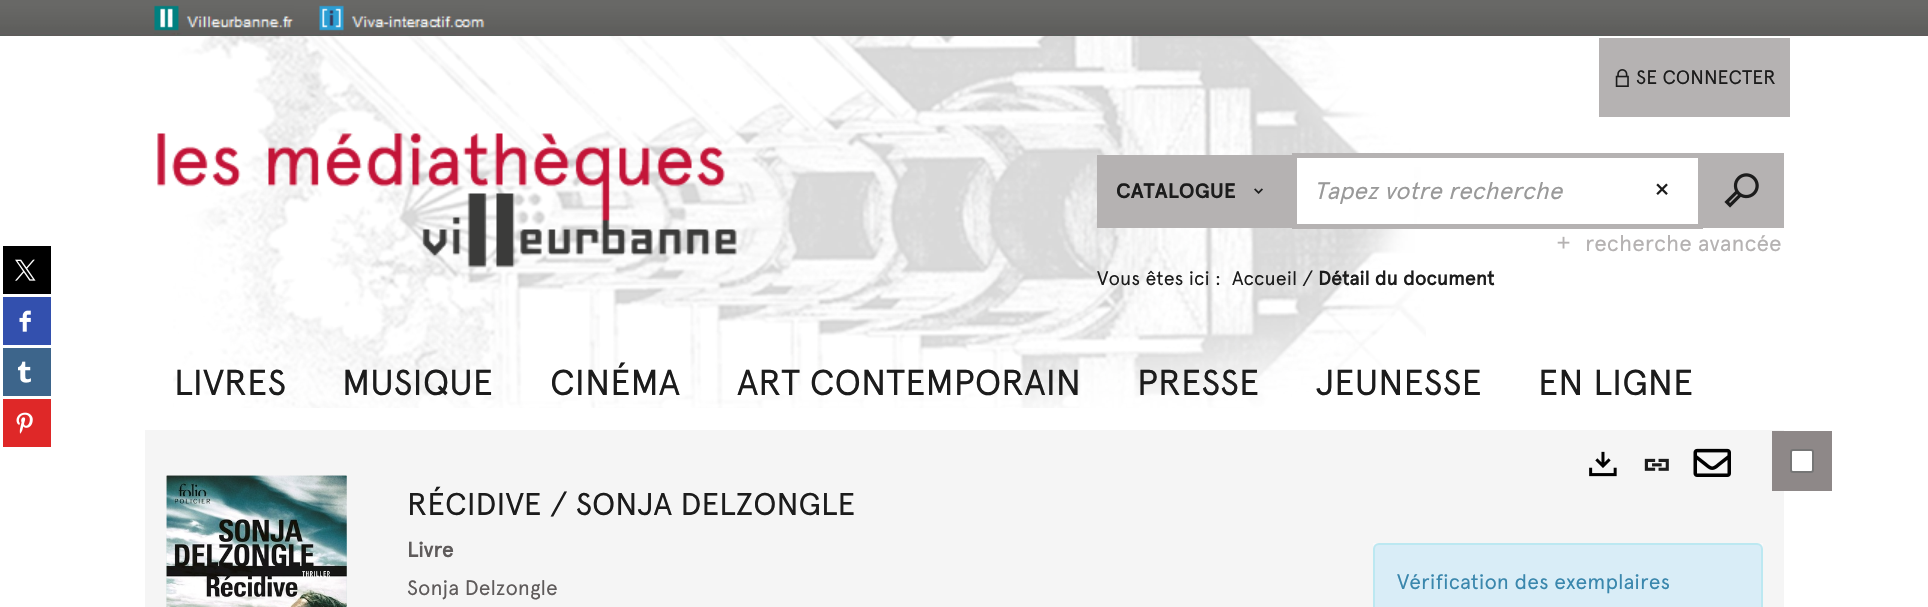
void draw(SkCanvas* c) {
SkPaint p;
p.setAntiAlias(true);
auto F=[&](const char* family, int weight, float size, bool italic = false){SkFontStyle style(weight, SkFontStyle::kNormal_Width,italic ? SkFontStyle::kItalic_Slant : SkFontStyle::kUpright_Slant);SkFont result(fontMgr->matchFamilyStyle(family, style), size);result.setSubpixel(true);return result;};
auto T=[&](const char* s, float x, float y, const SkFont& font){c->drawString(s, x, y, font, p);};
auto R=[&](float x, float y, float w, float h){c->drawRect(SkRect::MakeXYWH(x, y, w, h), p);};
auto I=[&](const char* path, float x, float y, float w, float h){auto image = SkImages::DeferredFromEncodedData(SkData::MakeFromFileName(path));c->drawImageRect(image, SkRect::MakeXYWH(x, y, w, h), SkSamplingOptions());};
c->clear(0xffffffff);
I("1.png",173,36,1253,372);
I("2.png",0,0,1928,36);
I("3.png",154,5,140,30);
I("4.png",319,5,166,30);
p.setColor(0xffb5b2b2);
R(1599,38,191,79);
I("5.png",1615,69,14,18);
auto f1 = F("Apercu",400,19.5);
p.setColor(0xff1c1c1c);
T("SE CONNECTER",1636,84,f1);
I("6.png",157,133,580,135);
p.setColor(0xffb5b2b2);
R(1097,155,195,73);
auto f2 = F("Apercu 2",700,21);
p.setColor(0xff1c1c1c);
T("CATALOGUE",1116,198,f2);
I("7.png",1254,188,9,6);
p.setColor(0xffffffff);
R(1297,158,117,66);
p.setColor(0xffb5b2b2);
R(1292,153,411,5);
R(1292,224,340,5);
R(1292,153,5,75);
auto f3 = F("Apercu",400,24,true);
p.setColor(0xff999999);
T("Tapez votre recherche",1314,199,f3);
p.setColor(0xffb5b2b2);
R(1698,153,86,75);
R(1631,224,72,5);
I("8.png",1656,183,12,12);
I("9.png",1724,173,35,35);
I("10.png",1557,236,13,13);
auto f4 = F("Apercu",400,22.5);
T("recherche avancée",1585,251,f4);
p.setColor(0xff1c1c1c);
T("Vous êtes ici :",1097,285,f1);
T("Accueil /",1232,285,f1);
auto f5 = F("Apercu",700,19.5);
T("Détail du document",1318,285,f5);
auto f6 = F("Apercu",400,36);
T("LIVRES",174,395,f6);
T("MUSIQUE",342,395,f6);
T("CINÉMA",550,395,f6);
T("ART CONTEMPORAIN",737,395,f6);
T("PRESSE",1137,395,f6);
T("JEUNESSE",1316,395,f6);
T("EN LIGNE",1538,395,f6);
p.setColor(0xff000000);
R(3,246,48,48);
I("11.png",15,259,21,22);
p.setColor(0xff3350ae);
R(3,297,48,48);
I("12.png",19,310,12,22);
p.setColor(0xff3d658b);
R(3,348,48,48);
I("13.png",18,361,13,22);
p.setColor(0xffdf2828);
R(3,399,48,48);
I("14.png",16,412,17,22);
p.setColor(0xfff5f5f5);
R(145,430,1639,177);
I("15.png",166,475,181,132);
I("16.png",166,475,181,132);
auto f7 = F("Apercu",400,31.5);
p.setColor(0xff1c1c1c);
T("RÉCIDIVE / SONJA DELZONGLE",407,515,f7);
auto f8 = F("Apercu",700,21);
p.setColor(0xff5f5b5b);
T("Livre",407,557,f8);
auto f9 = F("Apercu",400,21);
T("Sonja Delzongle",407,595,f9);
I("17.png",1589,451,28,26);
I("18.png",1644,458,25,13);
I("19.png",1693,448,38,29);
p.setColor(0xff8e8888);
R(1772,431,60,60);
p.setColor(0xffffffff);
c->drawRoundRect(SkRect::MakeXYWH(1791,450,22,22),2,2,p);
p.setStroke(true);
p.setStrokeWidth(2);
p.setColor(0xff767676);
c->drawRoundRect(SkRect::MakeXYWH(1791,450,22,22),2,2,p);
p.setStroke(false);
p.setColor(0xfffaf8f9);
R(1373,543,390,6);
p.setColor(0xffd9edf7);
c->drawRoundRect(SkRect::MakeXYWH(1374,544,388,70),5,5,p);
p.setStroke(true);
p.setColor(0xffbce8f1);
c->drawRoundRect(SkRect::MakeXYWH(1374,544,388,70),5,5,p);
p.setStroke(false);
p.setColor(0xff3a87ad);
T("Vérification des exemplaires",1397,589,f9);
}
